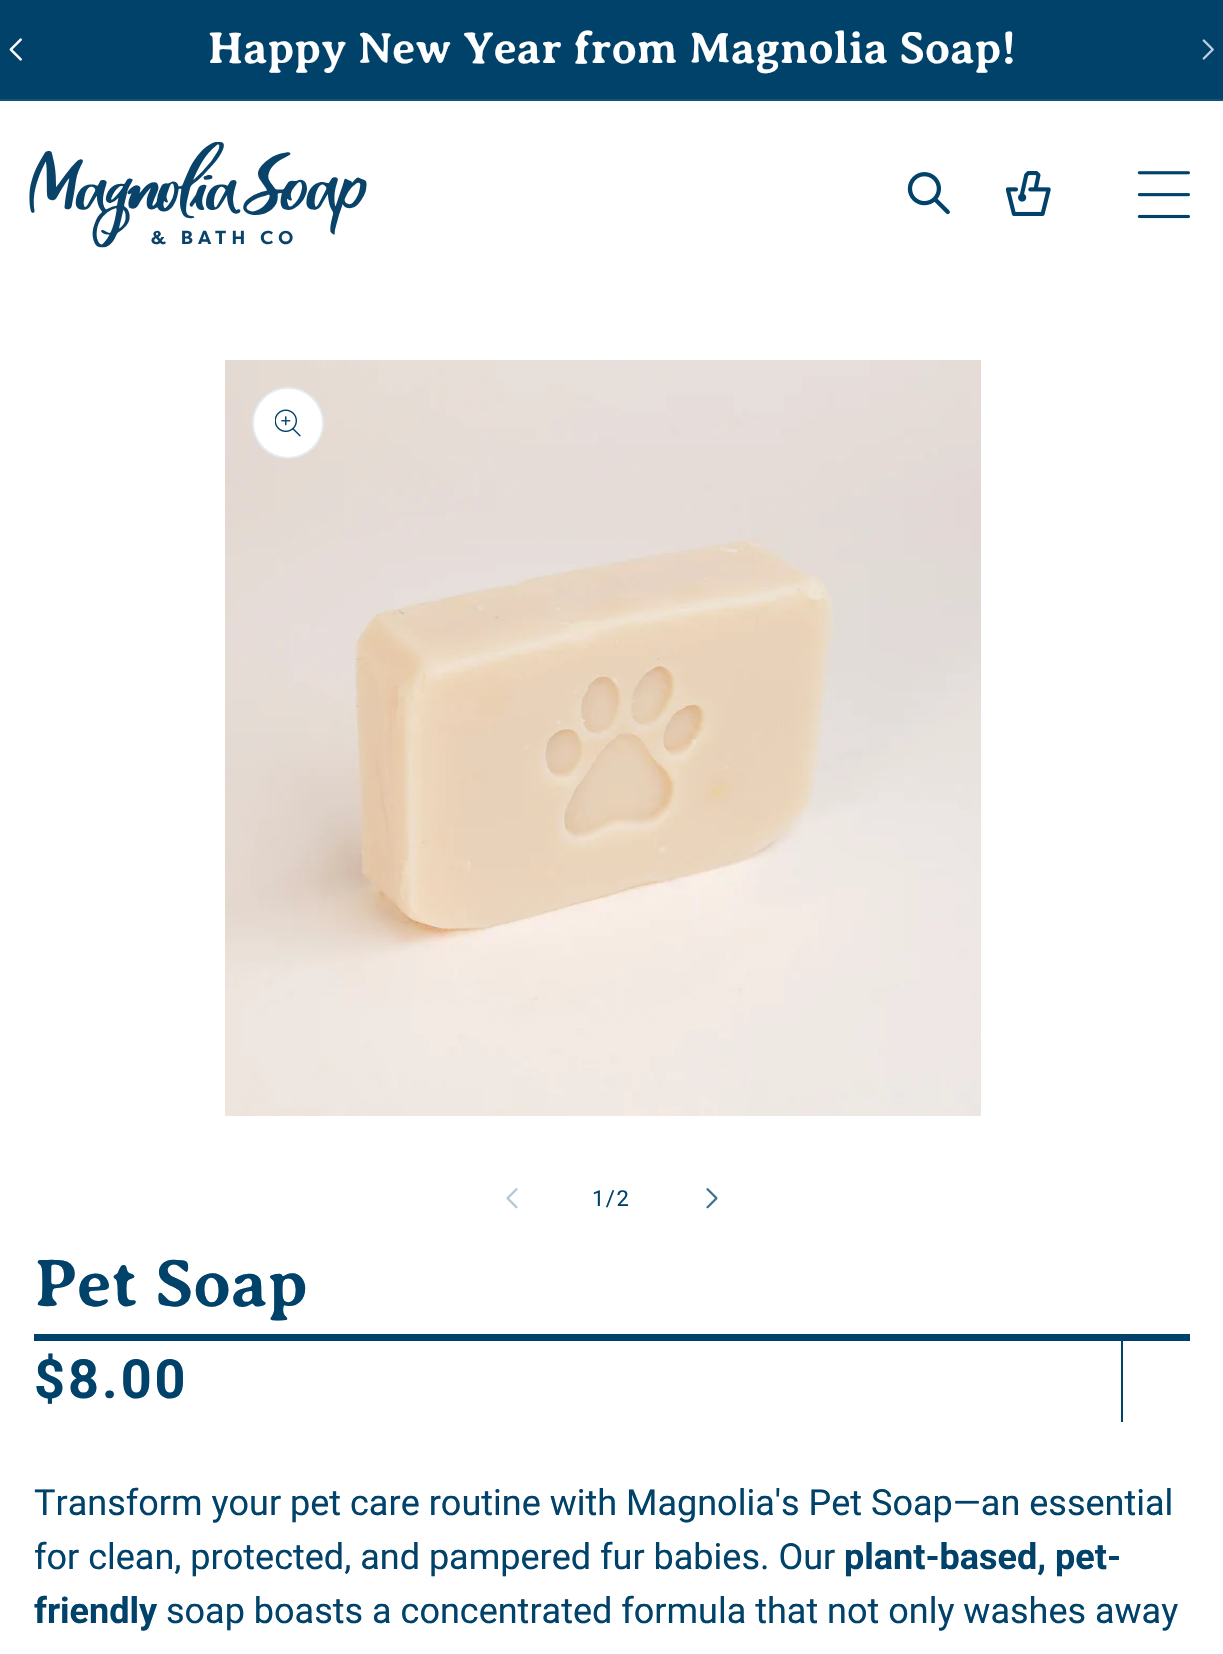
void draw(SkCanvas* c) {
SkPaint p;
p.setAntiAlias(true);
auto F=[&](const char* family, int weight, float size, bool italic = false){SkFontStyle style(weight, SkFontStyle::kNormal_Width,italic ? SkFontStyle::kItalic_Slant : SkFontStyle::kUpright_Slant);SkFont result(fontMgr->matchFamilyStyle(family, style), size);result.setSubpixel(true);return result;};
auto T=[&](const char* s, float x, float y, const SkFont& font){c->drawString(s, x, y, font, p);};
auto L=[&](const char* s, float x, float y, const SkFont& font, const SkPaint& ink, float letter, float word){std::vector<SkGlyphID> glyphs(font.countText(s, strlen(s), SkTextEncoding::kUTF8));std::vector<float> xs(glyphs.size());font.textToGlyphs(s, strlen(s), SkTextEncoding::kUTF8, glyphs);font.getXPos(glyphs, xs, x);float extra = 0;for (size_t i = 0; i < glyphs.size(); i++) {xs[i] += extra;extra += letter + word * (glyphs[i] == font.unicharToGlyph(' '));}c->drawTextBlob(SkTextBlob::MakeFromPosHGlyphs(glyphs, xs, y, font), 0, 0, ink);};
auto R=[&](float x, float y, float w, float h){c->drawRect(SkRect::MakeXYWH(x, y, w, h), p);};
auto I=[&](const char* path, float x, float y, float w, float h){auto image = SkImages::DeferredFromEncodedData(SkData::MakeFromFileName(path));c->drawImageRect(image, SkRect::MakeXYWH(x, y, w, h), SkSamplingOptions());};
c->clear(0xffffffff);
p.setColor(0xff01426a);
R(0,0,1223,99);
p.setColor(0xff155176);
R(0,99,1223,2);
I("1.png",9,38,13,23);
auto f1 = F("Averia Serif Libre",700,45);
p.setColor(0xffffffff);
T("Happy New Year from Magnolia Soap!",208,63,f1);
I("2.png",1202,39,12,21);
I("3.png",29,142,338,106);
I("4.png",907,172,43,43);
I("5.png",1006,171,45,45);
I("6.png",1137,171,53,48);
I("7.png",225,360,756,756);
c->drawCircle(288,423,36,p);
p.setStroke(true);
p.setStrokeWidth(2);
p.setColor(0x1a01426a);
c->drawCircle(288,423,35,p);
I("8.png",275,409,26,28);
I("9.png",506,1188,12,21);
auto f2 = F("Roboto",400,22);
p.setStroke(false);
p.setColor(0xff01426a);
L("1/2",592,1206,f2,p,1.5,0);
I("10.png",706,1188,12,21);
R(34,1334,1156,7);
auto f3 = F("Averia Serif Libre",700,67.5);
T("Pet Soap",34,1306,f3);
R(1121,1341,2,81);
auto f4 = F("Roboto",700,54);
L("$8.00",34,1398,f4,p,3,0);
auto f5 = F("Roboto",400,36);
T("Transform your pet care routine with Magnolia's Pet Soap—an essential",34,1515,f5);
T("for clean, protected, and pampered fur babies. Our",34,1569,f5);
auto f6 = F("Roboto",700,36);
T("plant-based, pet-",844,1569,f6);
T("friendly",34,1623,f6);
T("soap boasts a concentrated formula that not only washes away",166,1623,f5);
}
